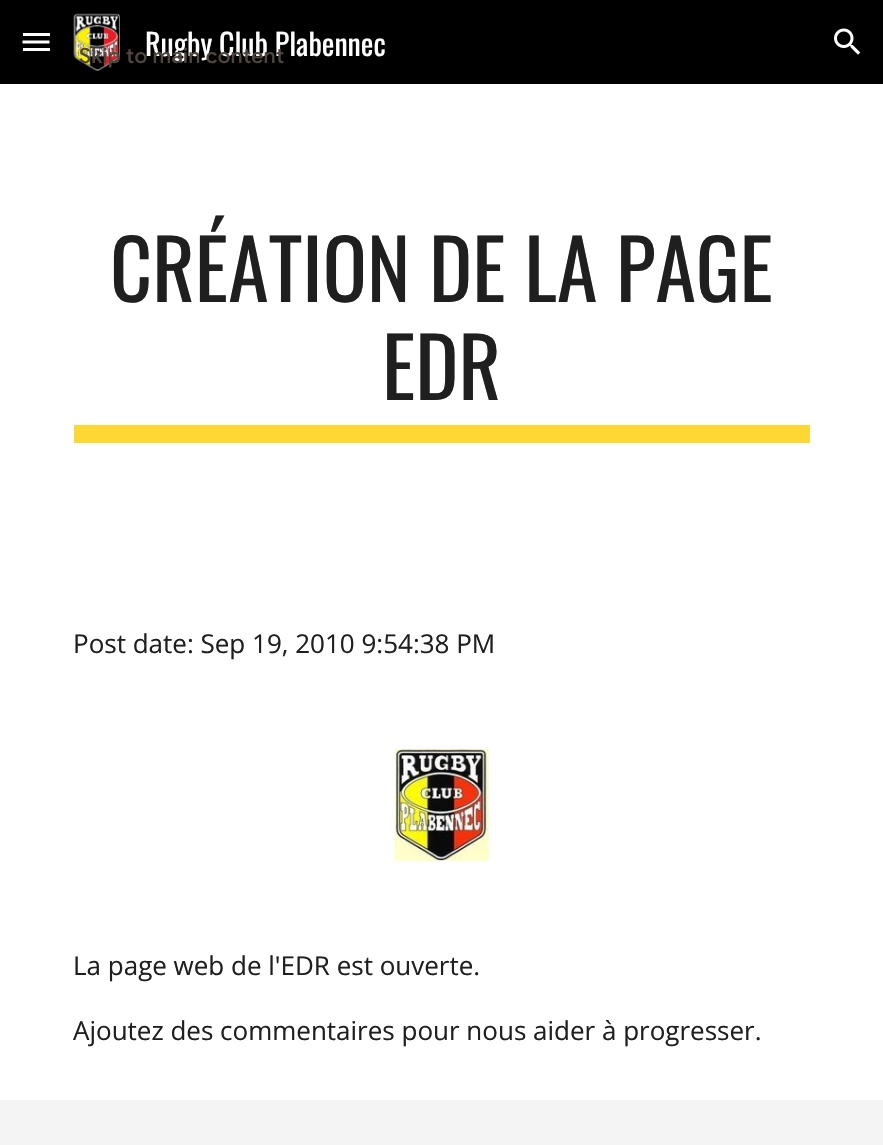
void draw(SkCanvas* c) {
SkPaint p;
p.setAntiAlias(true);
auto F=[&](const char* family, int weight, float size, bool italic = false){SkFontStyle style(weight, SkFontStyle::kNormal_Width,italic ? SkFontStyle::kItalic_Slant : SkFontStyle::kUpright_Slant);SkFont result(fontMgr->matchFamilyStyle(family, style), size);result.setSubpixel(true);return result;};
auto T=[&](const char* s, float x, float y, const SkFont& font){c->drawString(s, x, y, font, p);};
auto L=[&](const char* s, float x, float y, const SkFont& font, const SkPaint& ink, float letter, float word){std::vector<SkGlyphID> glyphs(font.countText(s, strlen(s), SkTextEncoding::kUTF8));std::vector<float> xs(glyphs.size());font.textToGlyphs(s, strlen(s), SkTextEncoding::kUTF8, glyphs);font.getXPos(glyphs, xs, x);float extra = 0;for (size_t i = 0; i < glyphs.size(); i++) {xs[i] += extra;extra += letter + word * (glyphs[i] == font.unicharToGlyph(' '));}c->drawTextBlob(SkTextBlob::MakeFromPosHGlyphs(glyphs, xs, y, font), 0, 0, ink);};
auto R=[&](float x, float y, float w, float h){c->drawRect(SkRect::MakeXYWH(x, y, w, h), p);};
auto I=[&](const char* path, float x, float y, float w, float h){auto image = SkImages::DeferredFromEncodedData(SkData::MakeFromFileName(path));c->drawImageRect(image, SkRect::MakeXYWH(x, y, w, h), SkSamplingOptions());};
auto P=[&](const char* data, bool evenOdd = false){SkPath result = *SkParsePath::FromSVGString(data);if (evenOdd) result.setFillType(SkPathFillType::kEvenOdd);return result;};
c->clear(0xffffffff);
p.setColor(0xff000000);
R(0,0,883,84);
p.setColor(0xffffffff);
R(23,33,27,3);
p.setStroke(true);
p.setStrokeWidth(3);
c->drawPath(P("M22.5 42h27"),p);
p.setStroke(false);
R(23,48,27,3);
I("1.png",73,13,47,58);
auto f1 = F("Oswald",400,30);
T("Rugby Club Plabennec",145,56,f1);
I("2.png",834,28,27,27);
auto f2 = F("Oswald",400,82);
p.setColor(0xff1f1f1f);
T("CRÉATION DE LA PAGE",110,302,f2);
T("EDR",382,400,f2);
p.setColor(0xfffdd835);
R(74,425,736,18);
auto f3 = F("Open Sans",400,26);
p.setColor(0xff1f1f1f);
T("Post date: Sep 19, 2010 9:54:38 PM",73,653,f3);
I("3.png",394,748,95,113);
T("La page web de l'EDR est ouverte.",73,975,f3);
T("Ajoutez des commentaires pour nous aider à progresser.",73,1040,f3);
p.setColor(0xfff4f4f4);
R(0,1100,883,45);
auto f4 = F("Google Sans",500,21);
p.setColor(0xff4f473e);
L("Skip to main content",79,63,f4,p,.25,0);
}
